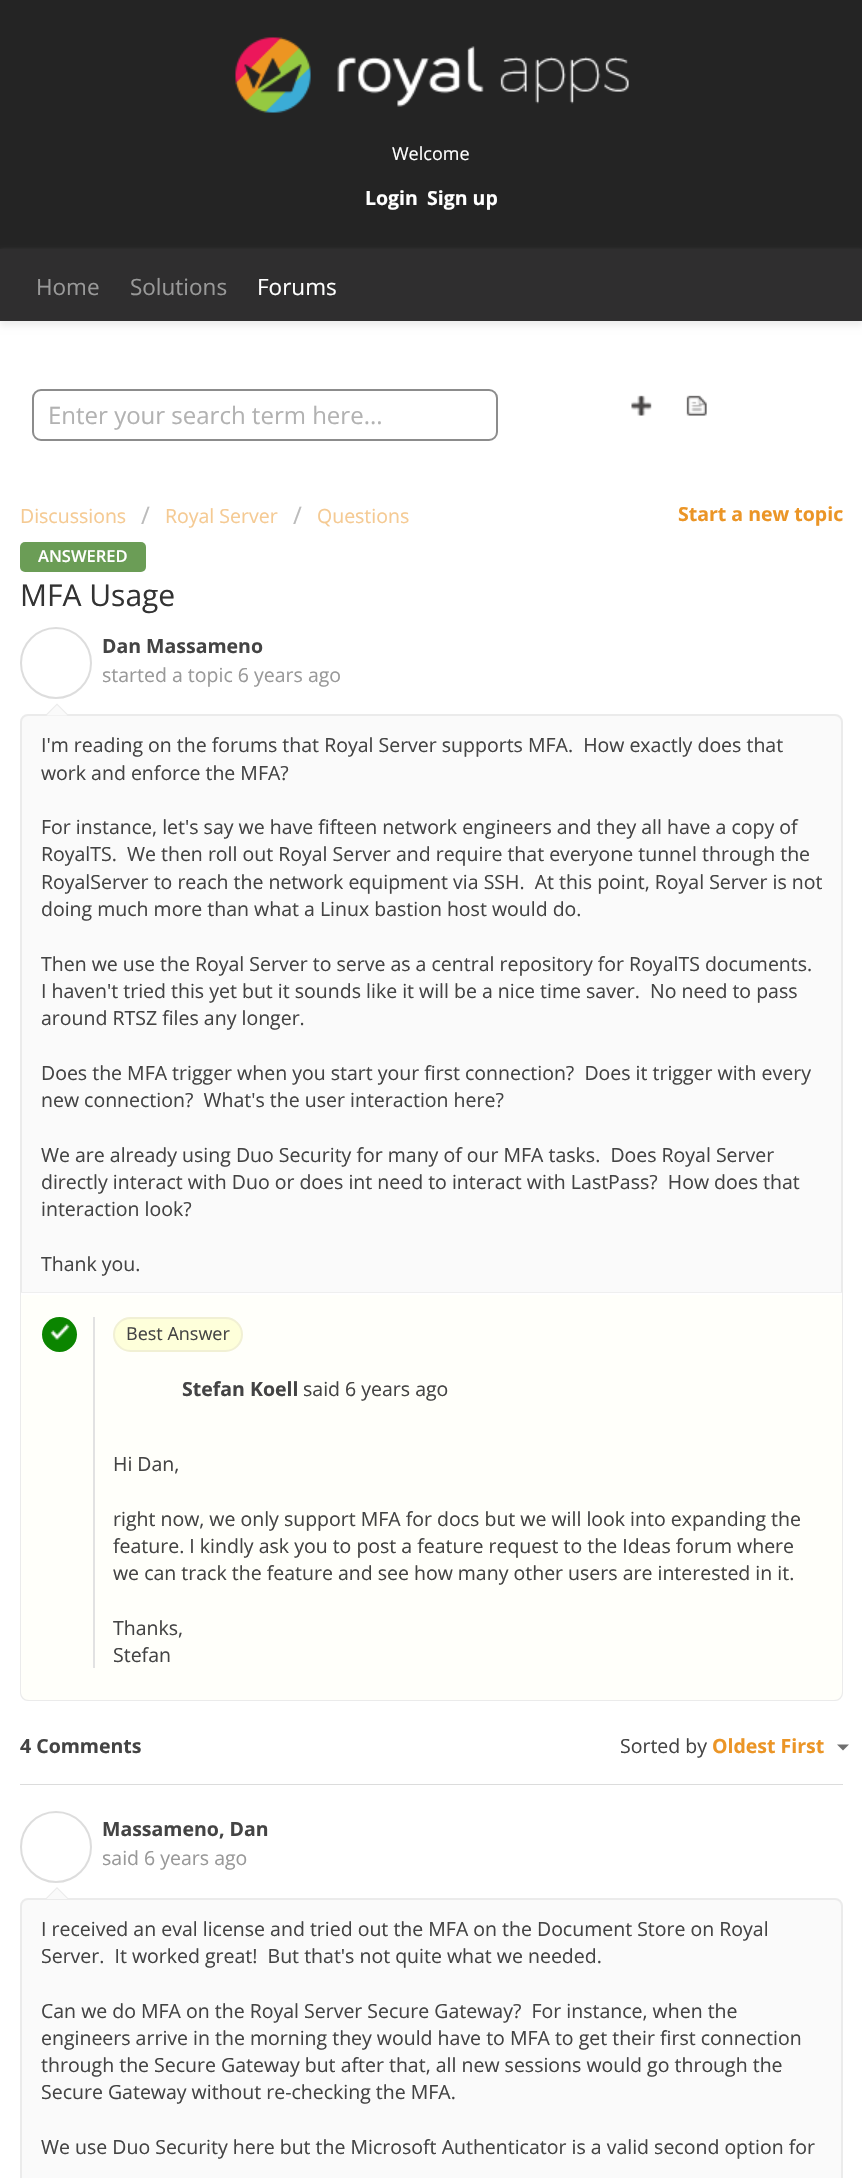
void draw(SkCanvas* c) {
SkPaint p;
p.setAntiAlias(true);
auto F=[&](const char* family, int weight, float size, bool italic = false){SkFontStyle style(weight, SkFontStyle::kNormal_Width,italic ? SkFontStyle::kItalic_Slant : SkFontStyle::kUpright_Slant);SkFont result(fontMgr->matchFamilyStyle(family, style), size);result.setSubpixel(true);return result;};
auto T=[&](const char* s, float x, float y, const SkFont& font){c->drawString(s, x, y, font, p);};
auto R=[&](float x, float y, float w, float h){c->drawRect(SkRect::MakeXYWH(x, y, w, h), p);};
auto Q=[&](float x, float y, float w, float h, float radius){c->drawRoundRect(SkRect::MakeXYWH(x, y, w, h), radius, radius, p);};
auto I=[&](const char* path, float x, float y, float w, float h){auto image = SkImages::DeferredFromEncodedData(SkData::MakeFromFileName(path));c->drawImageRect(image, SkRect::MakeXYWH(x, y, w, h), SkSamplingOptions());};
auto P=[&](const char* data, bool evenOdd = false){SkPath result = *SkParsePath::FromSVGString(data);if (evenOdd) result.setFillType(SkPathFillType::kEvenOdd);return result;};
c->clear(0xffffffff);
p.setColor(0xff242424);
R(0,0,862,249);
I("1.png",235,37,394,76);
auto f1 = F("Open Sans",400,18);
p.setColor(0xffffffff);
T("Welcome",392,160,f1);
auto f2 = F("Open Sans",700,19.5);
T("Login",365,205,f2);
T("Sign up",427,205,f2);
p.setColor(0xffeeeeee);
p.setMaskFilter(SkMaskFilter::MakeBlur(kNormal_SkBlurStyle, 3));
c->drawRect(SkRect::MakeXYWH(0,254,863,72),p);
p.setMaskFilter(nullptr);
p.setColor(0xff2f2e2f);
R(0,249,862,72);
auto f3 = F("Open Sans",400,22.5);
p.setColor(0xff999999);
T("Home",36,295,f3);
T("Solutions",130,295,f3);
p.setColor(0xffffffff);
T("Forums",257,295,f3);
p.setStroke(true);
p.setStrokeWidth(2);
p.setColor(0xff8c8c8c);
c->drawRoundRect(SkRect::MakeXYWH(33,390,464,50),8,8,p);
auto f4 = F("Open Sans",400,24);
p.setStroke(false);
p.setColor(0xffb2b2b2);
T("Enter your search term here...",48,424,f4);
I("2.png",631,395,21,21);
I("3.png",686,395,21,21);
auto f5 = F("Open Sans",400,19.5);
p.setColor(0xfff5ca93);
T("Discussions",20,523,f5);
p.setColor(0xffbbbbbb);
T("/",141,524,f4);
p.setColor(0xfff5ca93);
T("Royal Server",165,523,f5);
p.setColor(0xffbbbbbb);
T("/",293,524,f4);
p.setColor(0xfff5ca93);
T("Questions",317,523,f5);
p.setColor(0xffeb9526);
T("Start a new topic",678,521,f2);
p.setColor(0xff6b9d56);
Q(20,542,126,30,5);
auto f6 = F("Open Sans",600,16.5);
p.setColor(0xffffffff);
T("ANSWERED",38,562,f6);
auto f7 = F("Open Sans",400,30);
p.setColor(0xff333333);
T("MFA Usage",20,606,f7);
p.setStroke(true);
p.setColor(0xffdddddd);
c->drawCircle(56,663,35,p);
p.setStroke(false);
p.setColor(0xfffafafa);
c->drawRoundRect(SkRect::MakeXYWH(21,715,821,985),7,7,p);
p.setStroke(true);
p.setColor(0xffebebeb);
c->drawRoundRect(SkRect::MakeXYWH(21,715,821,985),7,7,p);
p.setStroke(false);
c->drawPath(P("M69 715.5h-24l12-12z"),p);
p.setColor(0xfffafafa);
c->drawPath(P("M67.5 715.5h-21l10.5-10.5z"),p);
p.setColor(0xff444444);
T("Dan Massameno",102,653,f2);
p.setColor(0xff999999);
T("started a topic 6 years ago",102,682,f5);
p.setColor(0xff444444);
T("I'm reading on the forums that Royal Server supports MFA.  How exactly does that",41,752,f5);
T("work and enforce the MFA?",41,780,f5);
T("For instance, let's say we have fifteen network engineers and they all have a copy of",41,834,f5);
T("RoyalTS.  We then roll out Royal Server and require that everyone tunnel through the",41,861,f5);
T("RoyalServer to reach the network equipment via SSH.  At this point, Royal Server is not",41,889,f5);
T("doing much more than what a Linux bastion host would do.",41,916,f5);
T("Then we use the Royal Server to serve as a central repository for RoyalTS documents.",41,971,f5);
T("I haven't tried this yet but it sounds like it will be a nice time saver.  No need to pass",41,998,f5);
T("around RTSZ files any longer.",41,1025,f5);
T("Does the MFA trigger when you start your first connection?  Does it trigger with every",41,1080,f5);
T("new connection?  What's the user interaction here?",41,1107,f5);
T("We are already using Duo Security for many of our MFA tasks.  Does Royal Server",41,1162,f5);
T("directly interact with Duo or does int need to interact with LastPass?  How does that",41,1189,f5);
T("interaction look?",41,1216,f5);
T("Thank you.",41,1271,f5);
p.setColor(0xffefefef);
R(21,1292,821,1);
p.setColor(0xfffffffa);
c->drawPath(P("M21 1293h821v399c0 4.5-3.5 8-8 8h-805c-4.5 0-8-3.5-8-8z"),p);
p.setColor(0xffffffff);
R(21,1293,821,2);
p.setColor(0xff0b8500);
c->drawCircle(59.5,1334.5,17.5,p);
I("4.png",50,1324,20,16);
p.setColor(0xffe2e2e2);
R(93,1317,2,351);
p.setColor(0xfffeffda);
c->drawRoundRect(SkRect::MakeXYWH(114,1318,128,33),16.5,16.5,p);
p.setStroke(true);
p.setColor(0xfff1f0d4);
c->drawRoundRect(SkRect::MakeXYWH(114,1318,128,33),16.5,16.5,p);
p.setStroke(false);
p.setColor(0xff444444);
T("Best Answer",126,1340,f1);
T("Stefan Koell",182,1396,f2);
T("said 6 years ago",303,1396,f5);
T("Hi Dan,",113,1471,f5);
T("right now, we only support MFA for docs but we will look into expanding the",113,1526,f5);
T("feature. I kindly ask you to post a feature request to the Ideas forum where",113,1553,f5);
T("we can track the feature and see how many other users are interested in it.",113,1580,f5);
T("Thanks,",113,1635,f5);
T("Stefan",113,1662,f5);
T("4 Comments",20,1753,f2);
T("Sorted by",620,1753,f5);
p.setColor(0xffeb9526);
T("Oldest First",712,1753,f2);
p.setColor(0xff6f6f6f);
c->drawPath(P("M837 1744.5h12l-6 6z"),p);
p.setColor(0xffdcdcdc);
R(20,1784,823,1);
p.setStroke(true);
p.setColor(0xffdddddd);
c->drawCircle(56,1847,35,p);
p.setStroke(false);
p.setColor(0xfffafafa);
c->drawRoundRect(SkRect::MakeXYWH(21,1899,821,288),7,7,p);
p.setStroke(true);
p.setColor(0xffebebeb);
c->drawRoundRect(SkRect::MakeXYWH(21,1899,821,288),7,7,p);
p.setStroke(false);
c->drawPath(P("M69 1899h-24l12-12z"),p);
p.setColor(0xfffafafa);
c->drawPath(P("M67.5 1899h-21l10.5-10.5z"),p);
p.setColor(0xff444444);
T("Massameno, Dan",102,1836,f2);
p.setColor(0xff999999);
T("said 6 years ago",102,1865,f5);
p.setColor(0xff444444);
T("I received an eval license and tried out the MFA on the Document Store on Royal",41,1936,f5);
T("Server.  It worked great!  But that's not quite what we needed.",41,1963,f5);
T("Can we do MFA on the Royal Server Secure Gateway?  For instance, when the",41,2018,f5);
T("engineers arrive in the morning they would have to MFA to get their first connection",41,2045,f5);
T("through the Secure Gateway but after that, all new sessions would go through the",41,2072,f5);
T("Secure Gateway without re-checking the MFA.",41,2099,f5);
T("We use Duo Security here but the Microsoft Authenticator is a valid second option for",41,2154,f5);
}
